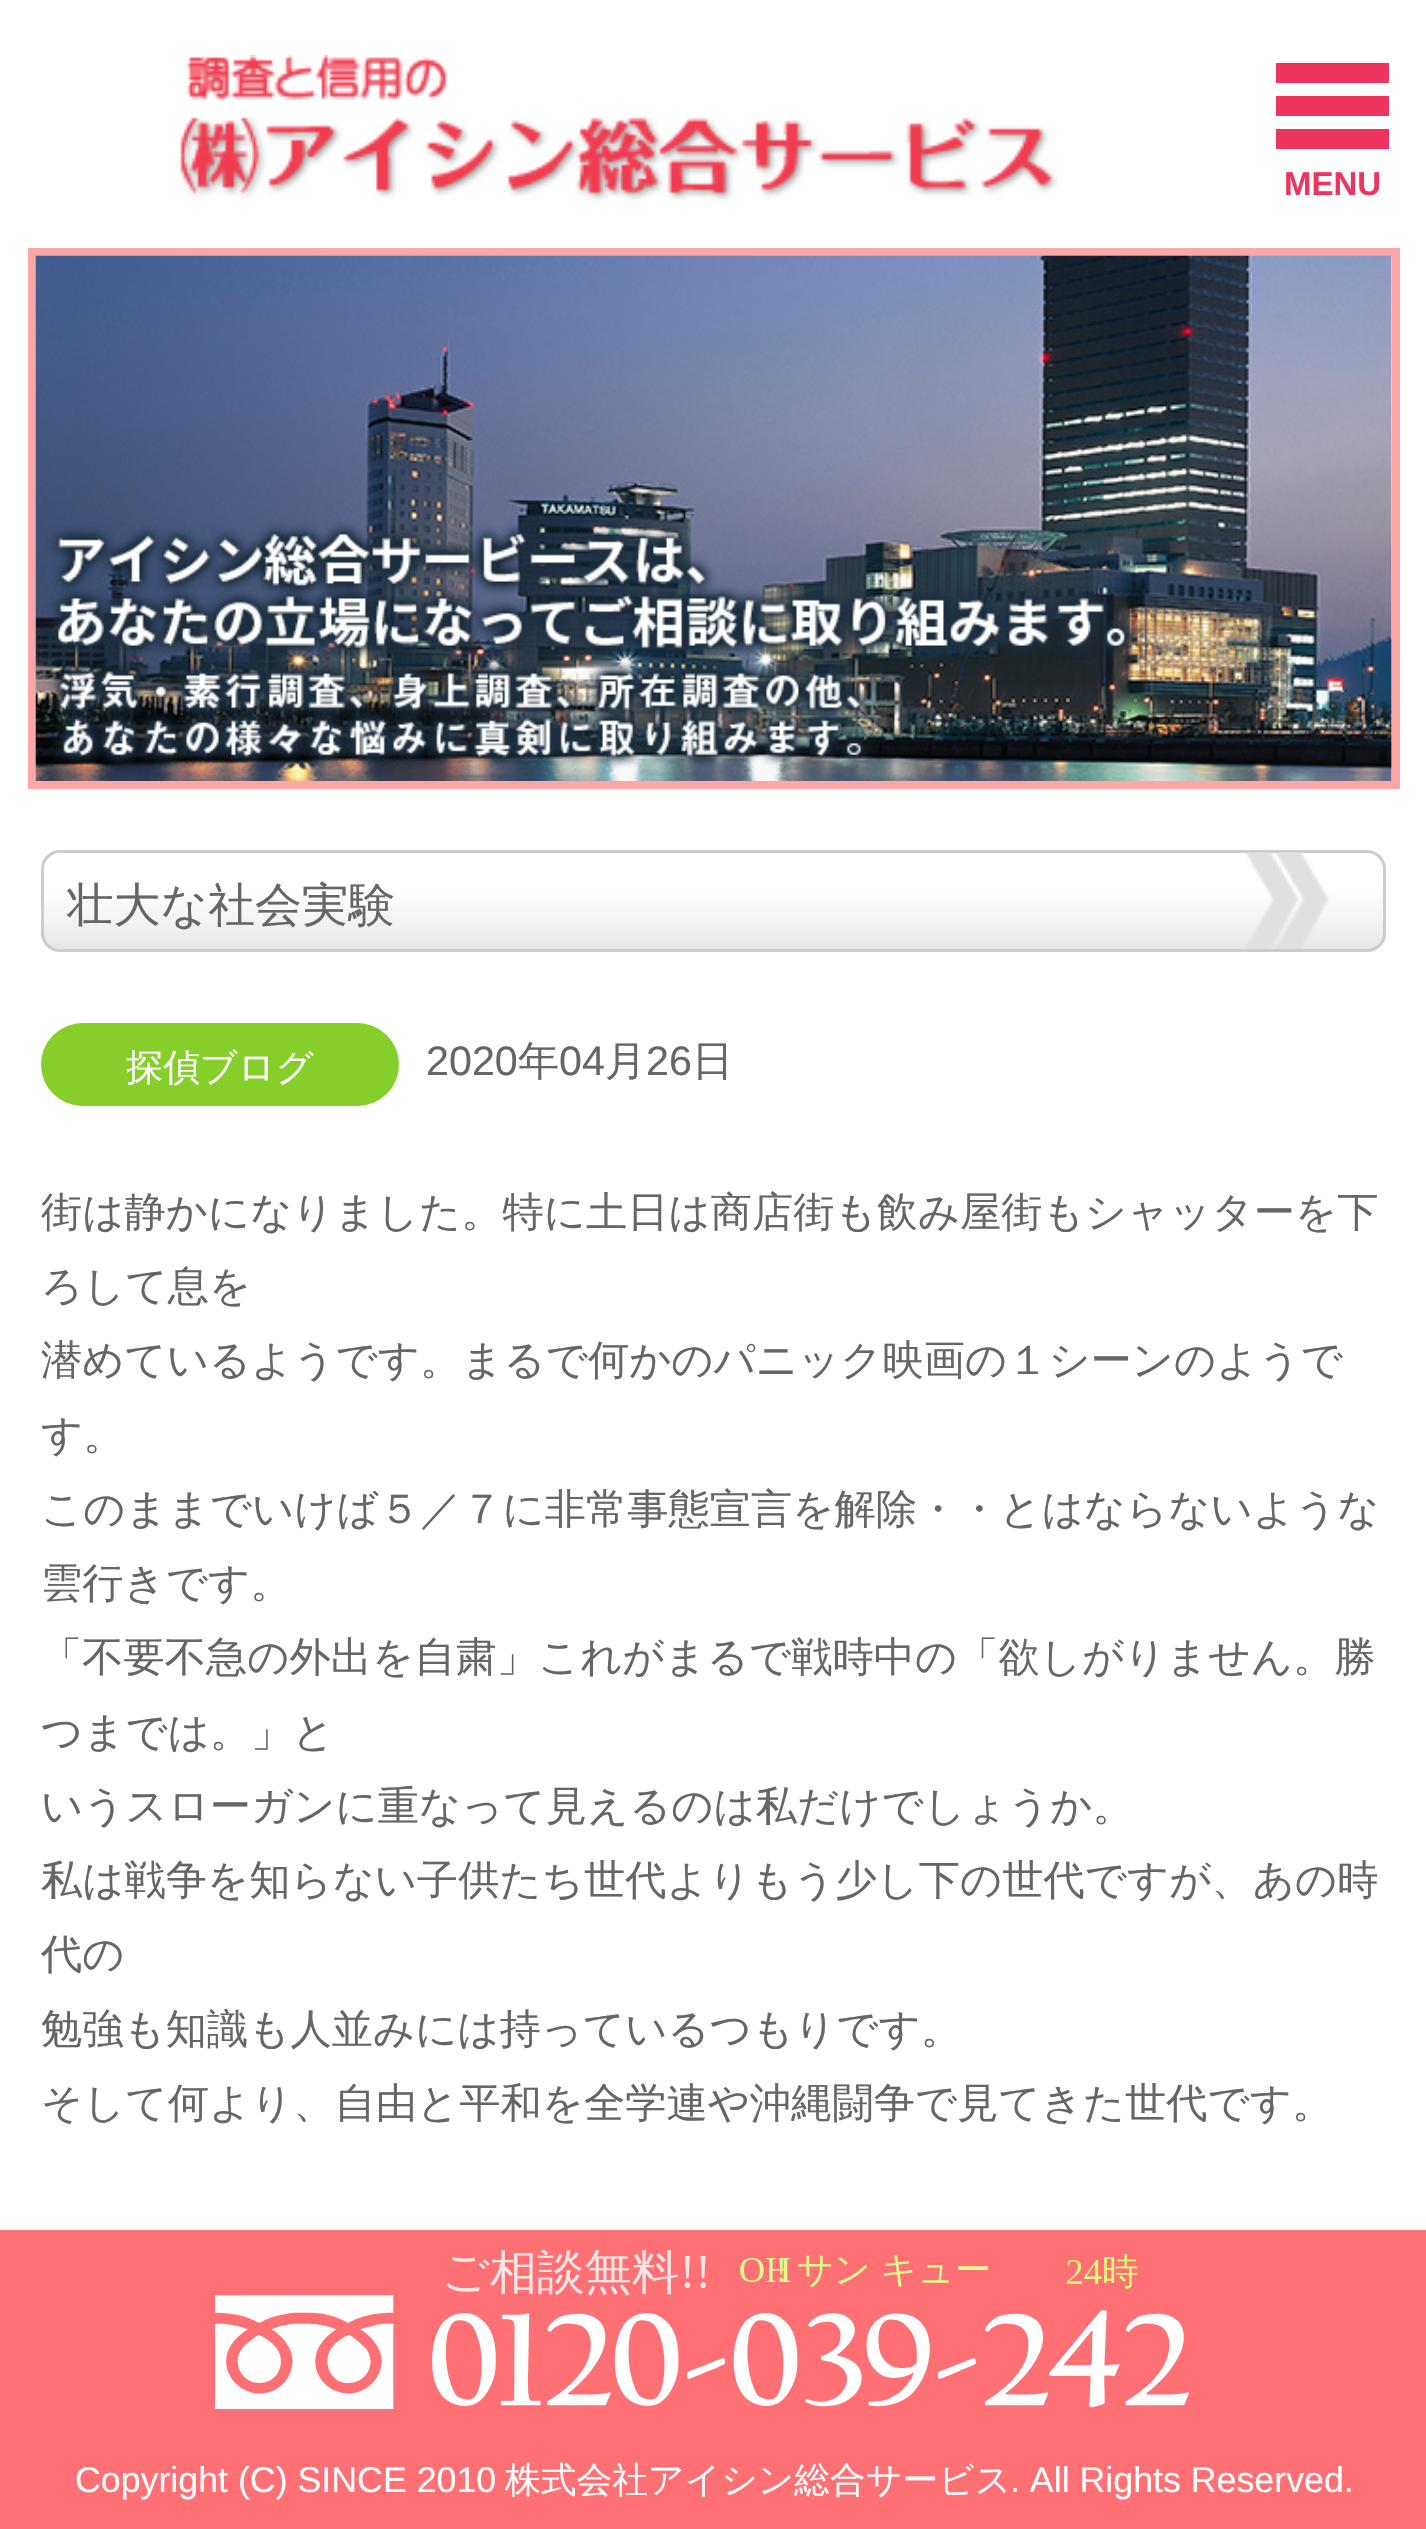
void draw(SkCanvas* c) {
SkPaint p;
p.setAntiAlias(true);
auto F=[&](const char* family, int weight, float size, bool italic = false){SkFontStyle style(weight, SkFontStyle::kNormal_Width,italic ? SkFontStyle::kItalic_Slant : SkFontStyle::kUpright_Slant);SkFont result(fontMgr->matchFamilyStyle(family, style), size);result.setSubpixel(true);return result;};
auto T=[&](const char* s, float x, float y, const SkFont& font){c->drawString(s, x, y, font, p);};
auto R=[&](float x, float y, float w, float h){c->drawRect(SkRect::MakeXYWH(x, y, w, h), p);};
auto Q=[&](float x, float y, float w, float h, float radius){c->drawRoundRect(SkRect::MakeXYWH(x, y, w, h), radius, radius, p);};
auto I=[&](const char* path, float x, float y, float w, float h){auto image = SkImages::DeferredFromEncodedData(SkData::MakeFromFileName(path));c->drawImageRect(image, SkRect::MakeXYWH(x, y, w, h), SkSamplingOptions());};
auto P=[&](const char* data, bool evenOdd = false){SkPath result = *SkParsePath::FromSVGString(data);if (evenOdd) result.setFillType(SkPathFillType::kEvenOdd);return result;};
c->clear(0xffffffff);
I("1.png",179,55,879,146);
p.setColor(0xffec345f);
R(1276,63,113,20);
R(1276,96,113,20);
R(1276,129,113,20);
auto f1 = F("Liberation Sans",700,33);
T("MENU",1284,195,f1);
p.setStroke(true);
p.setStrokeWidth(8);
p.setColor(0xfffda6a8);
c->drawRect(SkRect::MakeXYWH(32,252,1364,533),p);
I("2.png",35,255,1357,526);
c->save();
c->clipPath(P("M60 850h1307c10.5 0 19 8.5 19 19v64c0 10.5-8.5 19-19 19h-1307c-10.5 0-19-8.5-19-19v-64c0-10.5 8.5-19 19-19z"),true);
p.setStroke(false);
{
const SkColor colors[] = {0xffffffff,0xffffffff,0xffe7e7e7};
const float stops[] = {0,.4,1};
const SkPoint ends[] = {{714,853}, {714,949}};
p.setShader(SkGradientShader::MakeLinear(ends, colors, stops, 3, SkTileMode::kClamp));
p.setAlpha(255);
}
R(41,853,1345,96);
c->restore();
p.setStroke(true);
p.setStrokeWidth(3);
p.setShader(nullptr);
p.setColor(0xffcccccc);
c->drawRoundRect(SkRect::MakeXYWH(42.5,851.5,1342,99),17.5,17.5,p);
I("3.png",1245,852,84,97);
auto f2 = F("WenQuanYi Zen Hei",500,46.75);
p.setStroke(false);
p.setColor(0xff666666);
T("壮大な社会実験",67,921,f2);
p.setColor(0xff86cf2b);
Q(41,1023,358,83,41.5);
auto f3 = F("WenQuanYi Zen Hei",500,37);
p.setColor(0xffffffff);
T("探偵ブログ",126,1080,f3);
auto f4 = F("Liberation Sans",400,41.25);
p.setColor(0xff666666);
T("2020",426,1075,f4);
auto f5 = F("WenQuanYi Zen Hei",500,41.25);
T("年",518,1075,f5);
T("04",559,1075,f4);
T("月",605,1075,f5);
T("26",646,1075,f4);
T("日",692,1075,f5);
T("街は静かになりました。特に土日は商店街も飲み屋街もシャッターを下",41,1226,f5);
T("ろして息を",41,1300,f5);
T("潜めているようです。まるで何かのパニック映画の１シーンのようで",41,1374,f5);
T("す。",41,1449,f5);
T("このままでいけば５／７に非常事態宣言を解除・・とはならないような",41,1523,f5);
T("雲行きです。",41,1597,f5);
T("「不要不急の外出を自粛」これがまるで戦時中の「欲しがりません。勝",41,1671,f5);
T("つまでは。」と",41,1746,f5);
T("いうスローガンに重なって見えるのは私だけでしょうか。",41,1820,f5);
T("私は戦争を知らない子供たち世代よりもう少し下の世代ですが、あの時",41,1894,f5);
T("代の",41,1968,f5);
T("勉強も知識も人並みには持っているつもりです。",41,2043,f5);
T("そして何より、自由と平和を全学連や沖縄闘争で見てきた世代です。",41,2117,f5);
p.setColor(0xfffe7073);
R(0,2230,1426,299);
I("4.png",215,2250,974,159);
auto f6 = F("Liberation Sans",400,35.75);
p.setColor(0xffffffff);
T("Copyright (C) SINCE 2010",75,2492,f6);
auto f7 = F("WenQuanYi Zen Hei",500,35.75);
T("株式会社アイシン総合サービス",505,2492,f7);
T(". All Rights Reserved.",1010,2492,f6);
}
